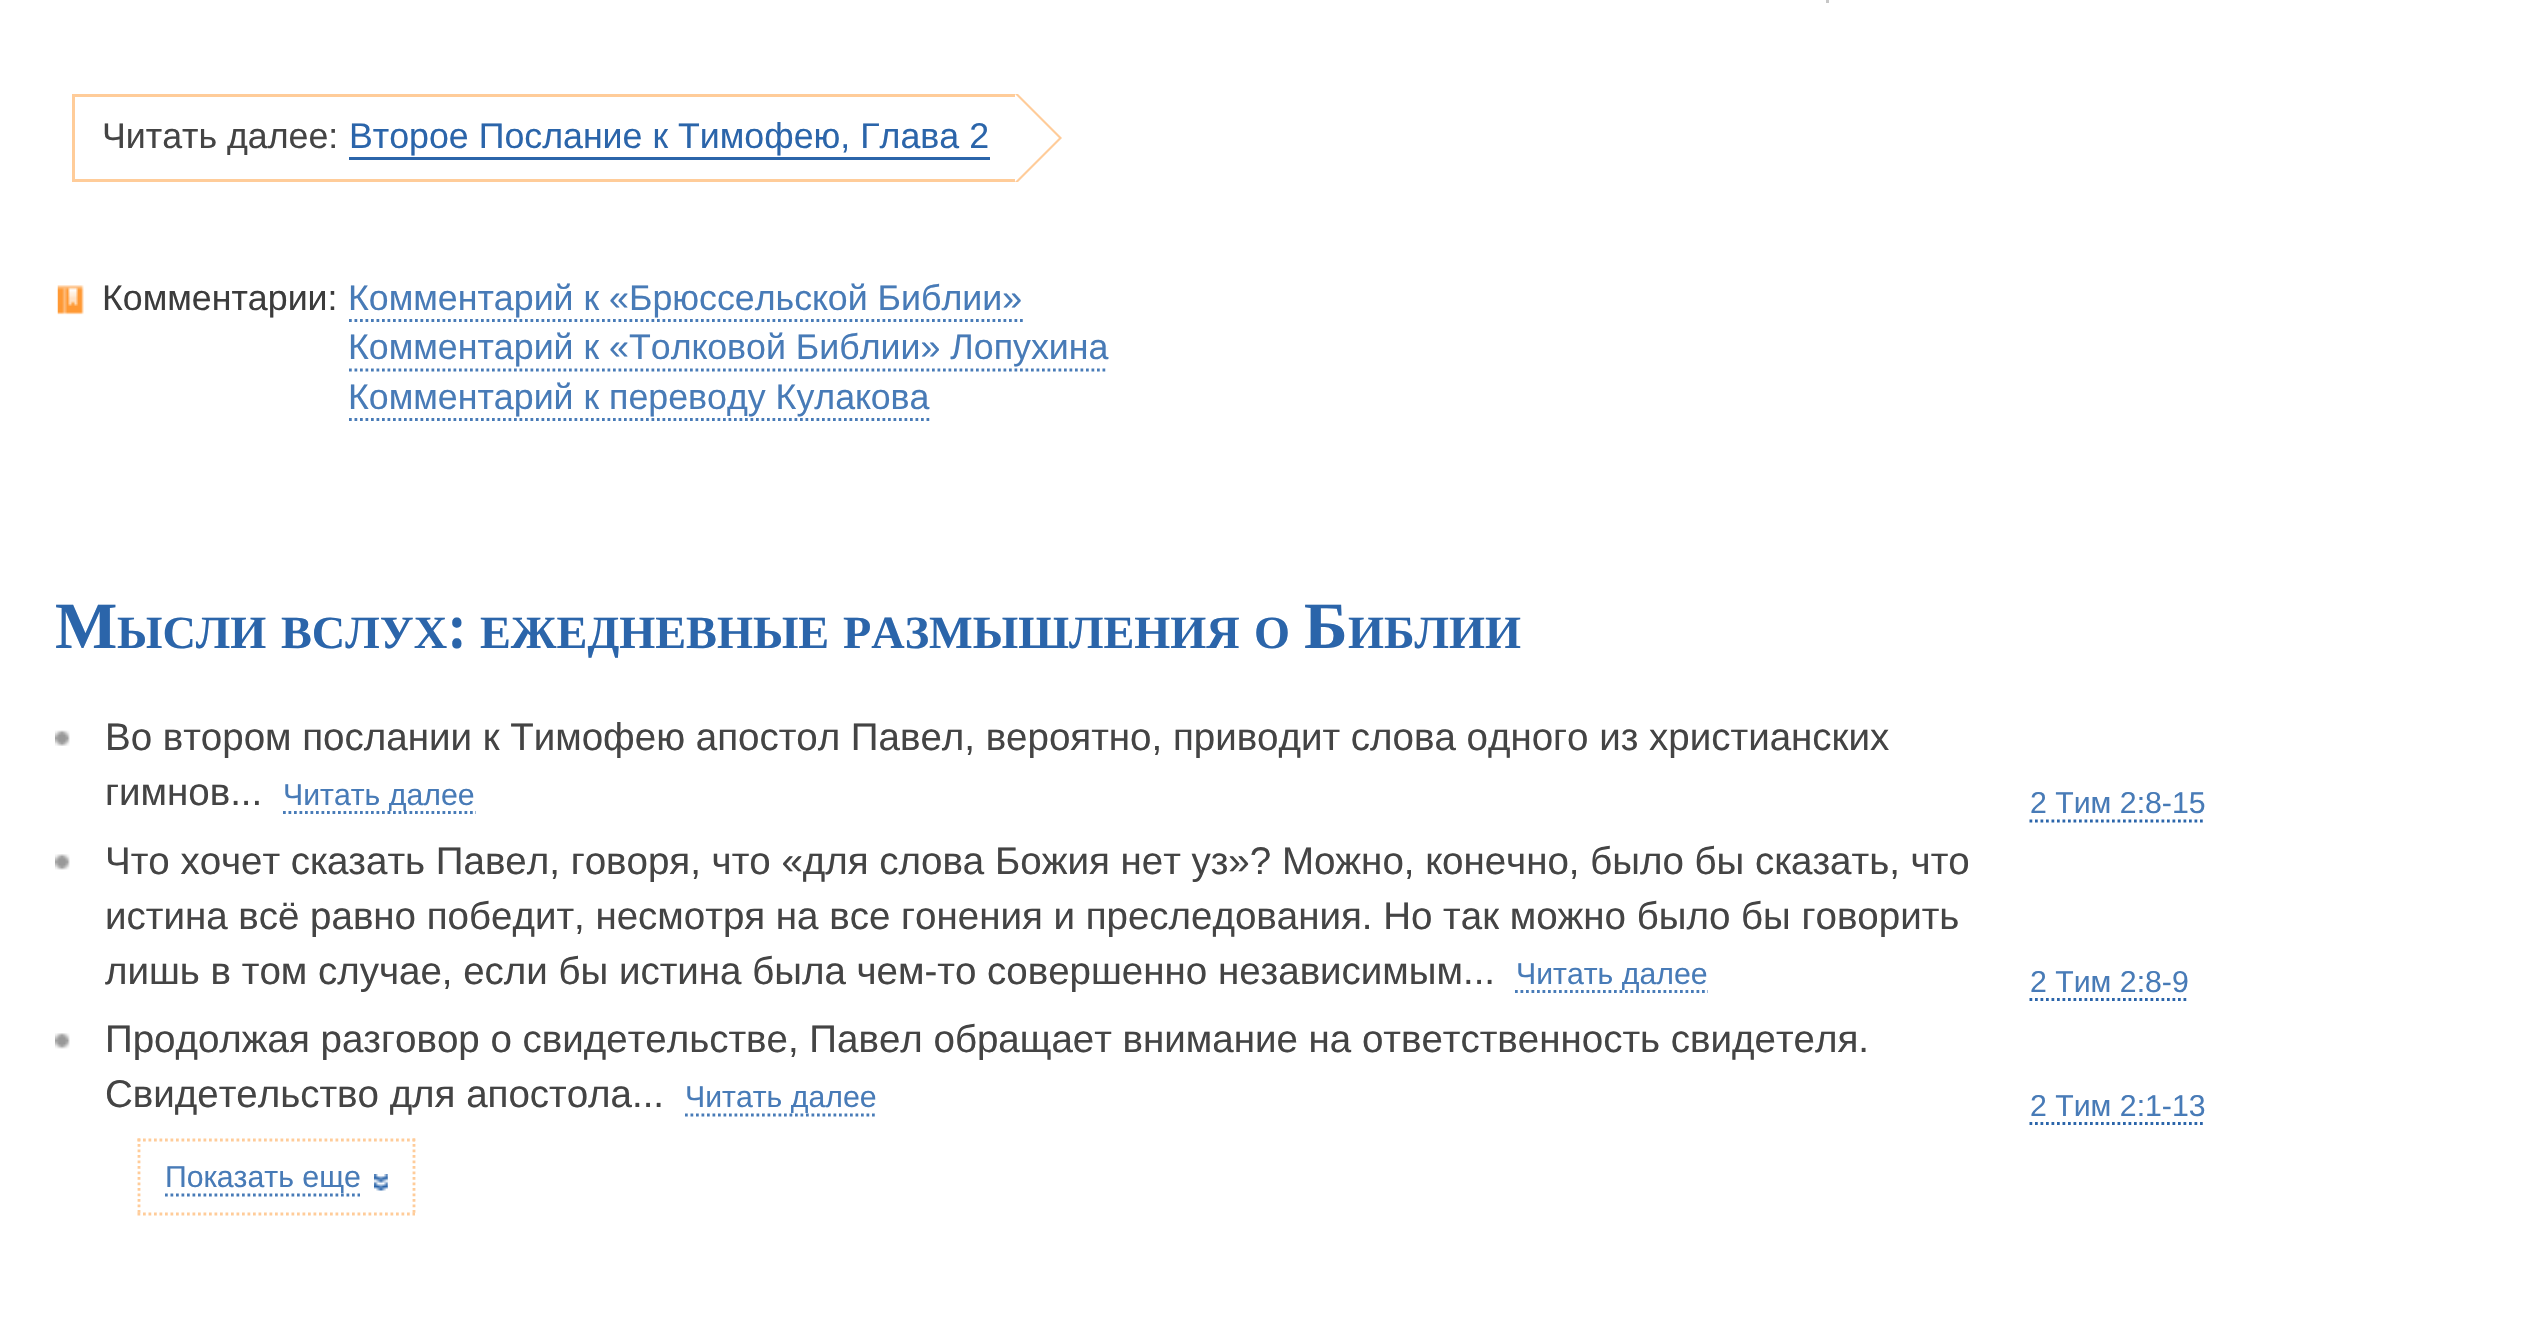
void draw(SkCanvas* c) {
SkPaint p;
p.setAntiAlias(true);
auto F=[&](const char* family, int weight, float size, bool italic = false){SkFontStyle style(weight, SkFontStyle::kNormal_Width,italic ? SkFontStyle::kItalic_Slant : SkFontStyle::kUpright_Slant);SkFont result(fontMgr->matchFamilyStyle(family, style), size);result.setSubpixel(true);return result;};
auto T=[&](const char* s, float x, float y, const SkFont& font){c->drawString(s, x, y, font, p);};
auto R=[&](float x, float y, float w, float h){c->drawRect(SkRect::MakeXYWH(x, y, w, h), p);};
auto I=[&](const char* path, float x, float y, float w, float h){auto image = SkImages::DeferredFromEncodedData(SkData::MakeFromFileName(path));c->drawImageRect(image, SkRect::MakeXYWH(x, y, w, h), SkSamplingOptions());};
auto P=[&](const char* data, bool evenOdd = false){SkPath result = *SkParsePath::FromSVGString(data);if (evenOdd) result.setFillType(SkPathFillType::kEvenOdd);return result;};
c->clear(0xffffffff);
p.setColor(0xffc7c7c7);
R(1826,0,3,8);
p.setColor(0xffffffff);
R(1826,3,3,5);
p.setColor(0xffffcc99);
R(72,94,946,3);
R(72,179,946,3);
R(72,94,3,88);
c->drawPath(P("M1018 182v-88l44 44z"),p);
p.setColor(0xffffffff);
c->drawPath(P("M1015 182v-88l44 44z"),p);
auto f1 = F("Liberation Sans",400,35.75);
p.setColor(0xff444444);
T("Читать далее:",102,148,f1);
p.setColor(0xff2b65aa);
T("Второе Послание к Тимофею, Глава 2",349,148,f1);
R(349,157,641,3);
I("1.png",57,285,27,30);
p.setColor(0xff3c3c3c);
T("Комментарии:",102,310,f1);
p.setColor(0xff487bb7);
T("Комментарий к «Брюссельской Библии»",348,310,f1);
p.setStroke(true);
p.setStrokeWidth(2.8);
p.setPathEffect(SkDashPathEffect::Make({{2.75f,2.75f}}, 0));
c->drawPath(P("M349 320.5h674"),p);
p.setPathEffect(nullptr);
p.setStroke(false);
T("Комментарий к «Толковой Библии» Лопухина",348,359,f1);
p.setStroke(true);
p.setPathEffect(SkDashPathEffect::Make({{2.75f,2.75f}}, 0));
c->drawPath(P("M349 370h759"),p);
p.setPathEffect(nullptr);
p.setStroke(false);
T("Комментарий к переводу Кулакова",348,409,f1);
p.setStroke(true);
p.setPathEffect(SkDashPathEffect::Make({{2.75f,2.75f}}, 0));
c->drawPath(P("M349 419.5h580.5"),p);
p.setPathEffect(nullptr);
auto f2 = F("Liberation Serif",700,66);
p.setStroke(false);
p.setColor(0xff2b65aa);
T("М",55,648,f2);
auto f3 = F("Liberation Serif",700,46.25);
T("ЫСЛИ",117,648,f3);
T("ВСЛУХ",281,648,f3);
auto f4 = F("Caladea",700,66);
T(":",447,648,f4);
T("ЕЖЕДНЕВНЫЕ",480,648,f3);
T("РАЗМЫШЛЕНИЯ",843,648,f3);
T("О",1254,648,f3);
T("Б",1304,648,f2);
T("ИБЛИИ",1348,648,f3);
I("2.png",55,730,15,16);
auto f5 = F("Liberation Sans",400,38.5);
p.setColor(0xff444444);
T("Во втором послании к Тимофею апостол Павел, вероятно, приводит слова одного из христианских",105,750,f5);
T("гимнов...",105,805,f5);
p.setStroke(true);
p.setColor(0xff487bb7);
p.setPathEffect(SkDashPathEffect::Make({{2.75f,2.75f}}, 0));
c->drawPath(P("M283 812.5h193"),p);
p.setPathEffect(nullptr);
auto f6 = F("Liberation Sans",400,30.25);
p.setStroke(false);
T("Читать далее",283,805,f6);
T("2 Тим 2:8-15",2030,813,f6);
p.setStroke(true);
p.setColor(0xff2b65aa);
p.setPathEffect(SkDashPathEffect::Make({{2.75f,2.75f}}, 0));
c->drawPath(P("M2029.5 821h176"),p);
p.setPathEffect(nullptr);
I("3.png",55,854,15,16);
p.setStroke(false);
p.setColor(0xff444444);
T("Что хочет сказать Павел, говоря, что «для слова Божия нет уз»? Можно, конечно, было бы сказать, что",105,874,f5);
T("истина всё равно победит, несмотря на все гонения и преследования. Но так можно было бы говорить",105,929,f5);
T("лишь в том случае, если бы истина была чем-то совершенно независимым...",105,984,f5);
p.setStroke(true);
p.setColor(0xff487bb7);
p.setPathEffect(SkDashPathEffect::Make({{2.75f,2.75f}}, 0));
c->drawPath(P("M1515 991.5h193"),p);
p.setPathEffect(nullptr);
p.setStroke(false);
T("Читать далее",1516,984,f6);
T("2 Тим 2:8-9",2030,992,f6);
p.setStroke(true);
p.setColor(0xff2b65aa);
p.setPathEffect(SkDashPathEffect::Make({{2.75f,2.75f}}, 0));
c->drawPath(P("M2029.5 999.5h159.5"),p);
p.setPathEffect(nullptr);
I("4.png",55,1033,15,16);
p.setStroke(false);
p.setColor(0xff444444);
T("Продолжая разговор о свидетельстве, Павел обращает внимание на ответственность свидетеля.",105,1052,f5);
T("Свидетельство для апостола...",105,1107,f5);
p.setStroke(true);
p.setColor(0xff487bb7);
p.setPathEffect(SkDashPathEffect::Make({{2.75f,2.75f}}, 0));
c->drawPath(P("M685 1115h192"),p);
p.setPathEffect(nullptr);
p.setStroke(false);
T("Читать далее",685,1107,f6);
T("2 Тим 2:1-13",2030,1116,f6);
p.setStroke(true);
p.setColor(0xff2b65aa);
p.setPathEffect(SkDashPathEffect::Make({{2.75f,2.75f}}, 0));
c->drawPath(P("M2029.5 1123.5h176"),p);
p.setPathEffect(nullptr);
p.setColor(0xffffcc99);
p.setPathEffect(SkDashPathEffect::Make({{2.75f,2.75f}}, 0));
c->drawPath(P("M137.5 1140h277.5"),p);
p.setPathEffect(nullptr);
p.setPathEffect(SkDashPathEffect::Make({{2.75f,2.75f}}, 0));
c->drawPath(P("M414 1138.5v77"),p);
p.setPathEffect(nullptr);
p.setPathEffect(SkDashPathEffect::Make({{2.75f,2.75f}}, 0));
c->drawPath(P("M137.5 1214h277.5"),p);
p.setPathEffect(nullptr);
p.setPathEffect(SkDashPathEffect::Make({{2.75f,2.75f}}, 0));
c->drawPath(P("M139 1138.5v77"),p);
p.setPathEffect(nullptr);
p.setStroke(false);
p.setColor(0xff487bb7);
T("Показать еще",165,1187,f6);
p.setStroke(true);
p.setPathEffect(SkDashPathEffect::Make({{2.75f,2.75f}}, 0));
c->drawPath(P("M165 1195h195"),p);
p.setPathEffect(nullptr);
I("5.png",374,1174,14,17);
}
